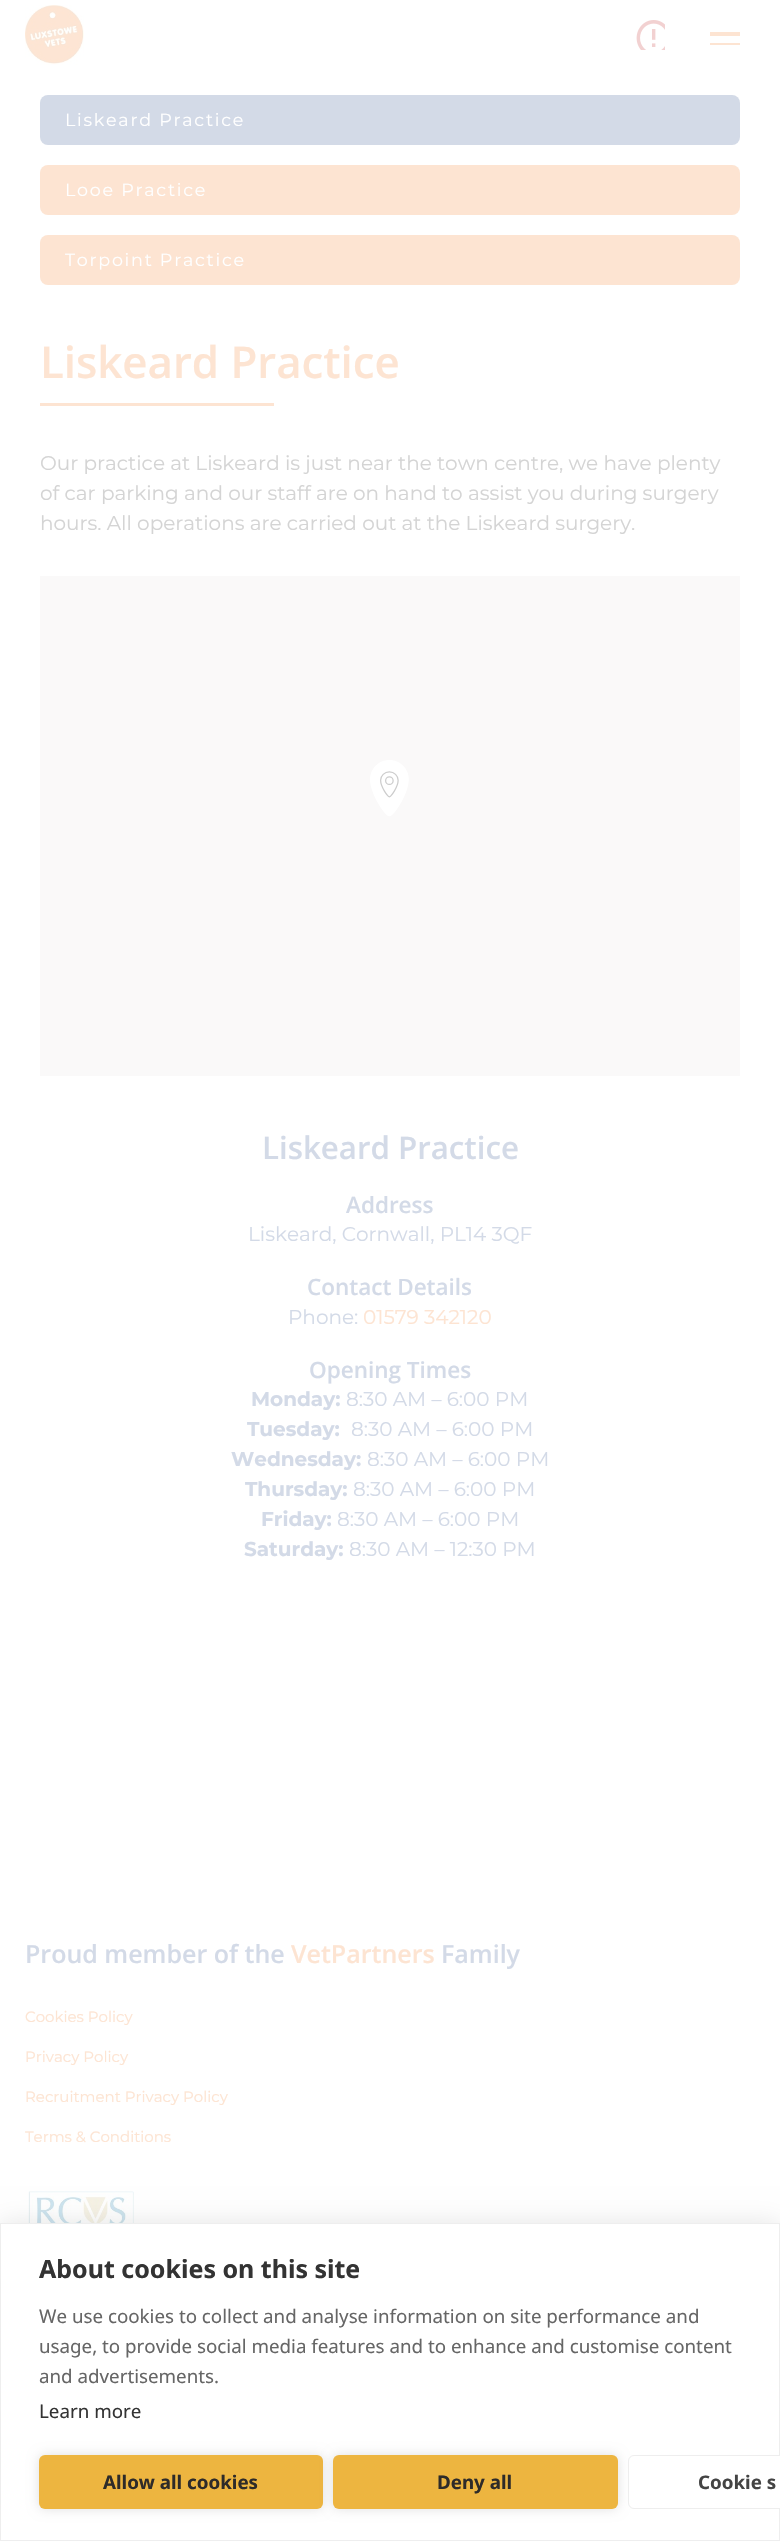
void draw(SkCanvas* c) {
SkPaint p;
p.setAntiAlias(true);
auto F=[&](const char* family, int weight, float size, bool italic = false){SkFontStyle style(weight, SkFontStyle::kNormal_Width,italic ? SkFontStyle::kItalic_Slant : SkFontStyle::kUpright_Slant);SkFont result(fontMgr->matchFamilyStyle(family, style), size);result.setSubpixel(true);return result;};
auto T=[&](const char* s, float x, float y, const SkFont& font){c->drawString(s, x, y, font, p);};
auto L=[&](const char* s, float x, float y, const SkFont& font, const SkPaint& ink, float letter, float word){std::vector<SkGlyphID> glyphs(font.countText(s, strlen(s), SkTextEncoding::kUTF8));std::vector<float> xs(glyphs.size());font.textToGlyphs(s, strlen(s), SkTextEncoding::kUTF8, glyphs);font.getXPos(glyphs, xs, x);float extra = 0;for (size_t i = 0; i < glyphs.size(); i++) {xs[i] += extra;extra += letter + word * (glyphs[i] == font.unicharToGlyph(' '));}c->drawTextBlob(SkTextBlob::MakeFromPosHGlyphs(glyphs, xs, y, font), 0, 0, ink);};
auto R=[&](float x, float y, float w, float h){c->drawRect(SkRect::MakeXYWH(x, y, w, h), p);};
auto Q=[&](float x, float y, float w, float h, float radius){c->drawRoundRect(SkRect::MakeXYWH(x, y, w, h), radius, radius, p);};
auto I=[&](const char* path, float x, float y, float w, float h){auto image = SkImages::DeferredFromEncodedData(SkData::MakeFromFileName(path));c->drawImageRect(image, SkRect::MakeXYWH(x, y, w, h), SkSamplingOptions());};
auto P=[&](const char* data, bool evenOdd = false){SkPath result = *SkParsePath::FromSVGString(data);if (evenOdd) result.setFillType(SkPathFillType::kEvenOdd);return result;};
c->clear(0xffffffff);
I("1.png",25,5,59,60);
I("2.png",636,20,29,30);
c->save();
c->clipRect(SkRect::MakeXYWH(710,25,30,20));
p.setColor(0xfffde4d2);
c->drawPath(P("M710 58h40v-4h-40zm0-11h40v-4h-40zm0-15v4h40v-4z"),p);
c->restore();
p.setColor(0xffd3dae7);
Q(40,95,700,50,8);
auto f1 = F("Montserrat",400,17.5);
p.setColor(0xffffffff);
L("Liskeard Practice",65,126,f1,p,1.75,0);
p.setColor(0xfffde4d2);
Q(40,165,700,50,8);
p.setColor(0xffffffff);
L("Looe Practice",65,196,f1,p,1.75,0);
p.setColor(0xfffde4d2);
Q(40,235,700,50,8);
p.setColor(0xffffffff);
L("Torpoint Practice",65,266,f1,p,1.75,0);
auto f2 = F("Open Sans",600,43.75);
p.setColor(0xfffde4d2);
T("Liskeard Practice",40,378,f2);
R(40,403,234,3);
auto f3 = F("Montserrat",400,20);
p.setColor(0xffd4d4d4);
T("Our practice at Liskeard is just near the town centre, we have plenty",40,470,f3);
T("of car parking and our staff are on hand to assist you during surgery",40,500,f3);
T("hours. All operations are carried out at the Liskeard surgery.",40,530,f3);
p.setColor(0xfffaf9f9);
R(40,576,700,500);
I("3.png",370,760,39,57);
auto f4 = F("Open Sans",600,31.25);
p.setColor(0xffd3dae7);
T("Liskeard Practice",262,1159,f4);
auto f5 = F("Open Sans",600,22.5);
T("Address",346,1213,f5);
T("Liskeard, Cornwall, PL14 3QF",248,1241,f3);
T("Contact Details",307,1295,f5);
T("Phone:",288,1324,f3);
p.setColor(0xfffde4d2);
T("01579 342120",363,1324,f3);
p.setColor(0xffd3dae7);
T("Opening Times",309,1378,f5);
auto f6 = F("Montserrat",700,20);
T("Monday:",251,1406,f6);
T("8:30 AM – 6:00 PM",346,1406,f3);
T("Tuesday:",247,1436,f6);
T("8:30 AM – 6:00 PM",351,1436,f3);
T("Wednesday:",231,1466,f6);
T("8:30 AM – 6:00 PM",367,1466,f3);
T("Thursday:",245,1496,f6);
T("8:30 AM – 6:00 PM",353,1496,f3);
T("Friday:",261,1526,f6);
T("8:30 AM – 6:00 PM",337,1526,f3);
T("Saturday:",244,1556,f6);
T("8:30 AM – 12:30 PM",349,1556,f3);
auto f7 = F("Open Sans",600,25);
T("Proud member of the",25,1963,f7);
p.setColor(0xfffde4d2);
T("VetPartners",291,1963,f7);
p.setColor(0xffd3dae7);
T("Family",441,1963,f7);
auto f8 = F("Montserrat",400,15);
p.setColor(0xfffde4d2);
T("Cookies Policy",25,2022,f8);
T("Privacy Policy",25,2062,f8);
T("Recruitment Privacy Policy",25,2102,f8);
T("Terms & Conditions",25,2142,f8);
I("4.png",28,2191,106,32);
p.setColor(0x1a000000);
p.setMaskFilter(SkMaskFilter::MakeBlur(kNormal_SkBlurStyle, 12.5));
c->drawRect(SkRect::MakeXYWH(0,2223,780,318),p);
p.setMaskFilter(nullptr);
p.setColor(0xffffffff);
c->drawRect(SkRect::MakeXYWH(.5,2223.5,779,317),p);
p.setStroke(true);
p.setStrokeWidth(1);
p.setColor(0xffeeeeee);
c->drawRect(SkRect::MakeXYWH(.5,2223.5,779,317),p);
auto f9 = F("Noto Sans",700,25);
p.setStroke(false);
p.setColor(0xff333333);
T("About cookies on this site",39,2278,f9);
auto f10 = F("Noto Sans",400,18.75);
p.setColor(0xff666666);
T("We use cookies to collect and analyse information on site performance and",39,2323,f10);
T("usage, to provide social media features and to enhance and customise content",39,2353,f10);
T("and advertisements.",39,2383,f10);
p.setColor(0xff333333);
T("Learn more",39,2418,f10);
p.setColor(0x1f000000);
p.setMaskFilter(SkMaskFilter::MakeBlur(kNormal_SkBlurStyle, 6));
c->drawRoundRect(SkRect::MakeXYWH(39,2455,284,54),6,6,p);
p.setMaskFilter(nullptr);
p.setColor(0xffedb540);
Q(39,2455,284,54,6);
auto f11 = F("Noto Sans",700,18.75);
p.setColor(0xff2e2b29);
T("Allow all cookies",103,2489,f11);
p.setColor(0x1f000000);
p.setMaskFilter(SkMaskFilter::MakeBlur(kNormal_SkBlurStyle, 6));
c->drawRoundRect(SkRect::MakeXYWH(333,2455,285,54),6,6,p);
p.setMaskFilter(nullptr);
p.setColor(0xffedb540);
Q(333,2455,285,54,6);
p.setColor(0xff2e2b29);
T("Deny all",437,2489,f11);
p.setColor(0xffffffff);
c->drawRoundRect(SkRect::MakeXYWH(628.5,2455.5,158,53),5.5,5.5,p);
p.setStroke(true);
p.setColor(0xffeeeeee);
c->drawRoundRect(SkRect::MakeXYWH(628.5,2455.5,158,53),5.5,5.5,p);
p.setStroke(false);
p.setColor(0xff444444);
T("Cookie s",698,2489,f11);
}
